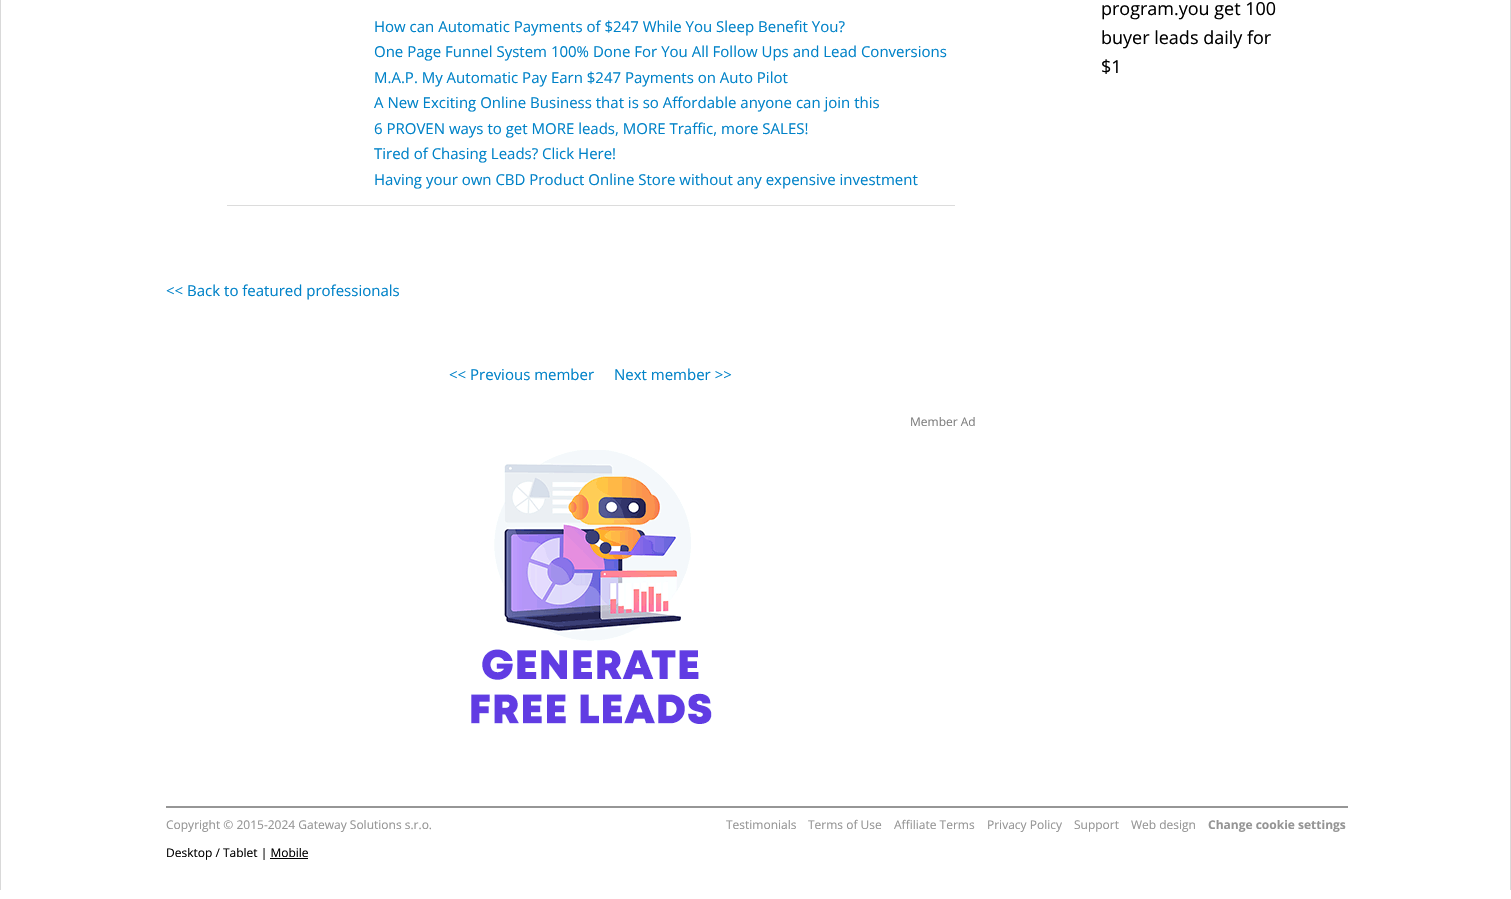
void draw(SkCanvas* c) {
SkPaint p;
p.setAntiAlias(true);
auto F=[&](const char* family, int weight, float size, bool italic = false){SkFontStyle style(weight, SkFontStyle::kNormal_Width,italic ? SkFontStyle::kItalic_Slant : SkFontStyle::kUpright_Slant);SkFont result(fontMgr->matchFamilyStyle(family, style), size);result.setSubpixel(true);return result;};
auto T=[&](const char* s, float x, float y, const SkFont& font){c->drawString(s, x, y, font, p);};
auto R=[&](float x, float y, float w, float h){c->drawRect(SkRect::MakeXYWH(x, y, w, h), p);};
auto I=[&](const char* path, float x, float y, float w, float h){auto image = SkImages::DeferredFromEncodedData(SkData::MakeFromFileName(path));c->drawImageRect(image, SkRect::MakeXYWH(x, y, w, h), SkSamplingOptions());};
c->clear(0xffffffff);
p.setColor(0xffd9d9d9);
R(1510,0,1,890);
R(0,0,1,890);
p.setColor(0xffdcdcdc);
R(227,205,728,1);
auto f1 = F("Open Sans",400,15);
p.setColor(0xff0082c8);
T("How can Automatic Payments of $247 While You Sleep Benefit You?",374,32,f1);
T("One Page Funnel System 100% Done For You All Follow Ups and Lead Conversions",374,57,f1);
T("M.A.P. My Automatic Pay Earn $247 Payments on Auto Pilot",374,83,f1);
T("A New Exciting Online Business that is so Affordable anyone can join this",374,108,f1);
T("6 PROVEN ways to get MORE leads, MORE Traffic, more SALES!",374,134,f1);
T("Tired of Chasing Leads? Click Here!",374,159,f1);
T("Having your own CBD Product Online Store without any expensive investment",374,185,f1);
T("<< Back to featured professionals",166,296,f1);
T("<< Previous member",449,380,f1);
T("Next member >>",614,380,f1);
auto f2 = F("Open Sans",400,12);
p.setColor(0xff808080);
T("Member Ad",910,426,f2);
I("1.png",471,450,241,274);
auto f3 = F("Open Sans",400,18);
p.setColor(0xff000000);
T("program.you get 100",1101,15,f3);
T("buyer leads daily for",1101,44,f3);
T("$1",1101,73,f3);
p.setColor(0xff969696);
R(166,806,1182,2);
p.setColor(0xff959595);
T("Copyright © 2015-2024 Gateway Solutions s.r.o.",166,829,f2);
T("Testimonials",726,829,f2);
T("Terms of Use",808,829,f2);
T("Affiliate Terms",894,829,f2);
T("Privacy Policy",987,829,f2);
T("Support",1074,829,f2);
T("Web design",1131,829,f2);
auto f4 = F("Open Sans",700,12);
T("Change cookie settings",1208,829,f4);
p.setColor(0xff000000);
T("Desktop / Tablet | Mobile",166,857,f2);
R(270,858,38,1);
}
